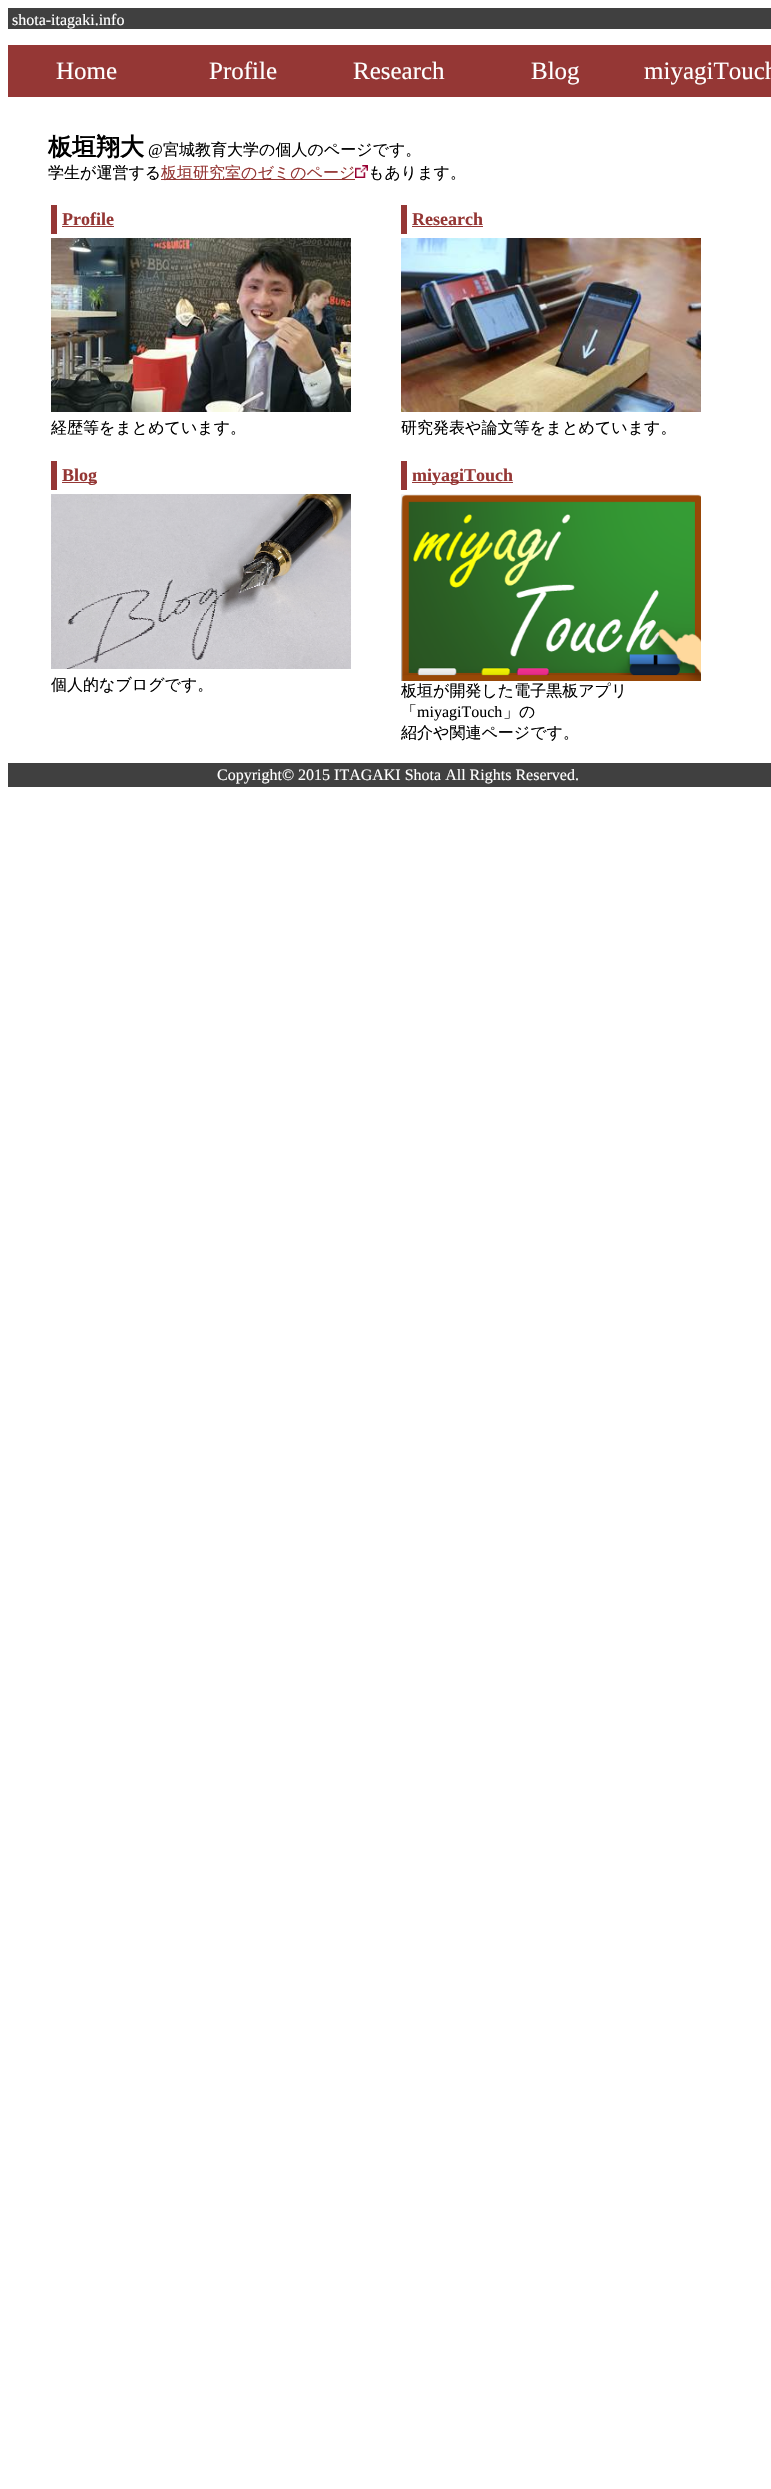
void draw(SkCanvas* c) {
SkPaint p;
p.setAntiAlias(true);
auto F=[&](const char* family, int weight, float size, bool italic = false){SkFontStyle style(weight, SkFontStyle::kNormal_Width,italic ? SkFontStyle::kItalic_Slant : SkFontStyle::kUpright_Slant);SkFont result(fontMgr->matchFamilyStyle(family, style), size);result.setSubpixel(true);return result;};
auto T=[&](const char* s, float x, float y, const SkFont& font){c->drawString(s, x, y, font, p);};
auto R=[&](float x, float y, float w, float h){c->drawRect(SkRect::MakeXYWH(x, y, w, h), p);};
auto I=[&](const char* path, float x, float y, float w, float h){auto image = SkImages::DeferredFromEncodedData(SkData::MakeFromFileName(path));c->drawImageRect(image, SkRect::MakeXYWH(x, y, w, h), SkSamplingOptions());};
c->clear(0xffffffff);
p.setColor(0xff404040);
R(8,8,763,21);
auto f1 = F("Liberation Serif",400,16);
p.setColor(0xffffffff);
T("shota-itagaki.info",12,25,f1);
p.setStroke(true);
p.setStrokeWidth(1);
p.setColor(0xff953735);
c->drawRect(SkRect::MakeXYWH(8.5,45.5,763,51),p);
p.setStroke(false);
R(9,46,762,50);
auto f2 = F("Liberation Serif",400,25);
p.setColor(0xffffffff);
T("Home",56,79,f2);
T("Profile",209,79,f2);
T("Research",353,79,f2);
T("Blog",531,79,f2);
T("miyagiTouch",644,79,f2);
auto f3 = F("WenQuanYi Zen Hei",700,24);
p.setColor(0xff000000);
T("板垣翔大",48,155,f3);
T("@",148,155,f1);
auto f4 = F("WenQuanYi Zen Hei",500,16);
T("宮城教育大学の個人のページです。",163,155,f4);
T("学生が運営する",48,178,f4);
p.setColor(0xff953735);
R(161,179,194,1);
T("板垣研究室のゼミのページ",161,178,f4);
I("1.png",355,165,13,13);
p.setColor(0xff000000);
T("もあります。",368,178,f4);
p.setColor(0xff953735);
R(51,205,6,29);
auto f5 = F("Liberation Serif",700,18);
T("Profile",62,225,f5);
R(62,226,52,1);
R(401,205,6,29);
T("Research",412,225,f5);
R(412,226,71,1);
I("2.png",51,238,300,174);
p.setColor(0xff000000);
T("経歴等をまとめています。",51,433,f4);
I("3.png",401,238,300,174);
T("研究発表や論文等をまとめています。",401,433,f4);
p.setColor(0xff953735);
R(51,461,6,29);
R(62,482,35,1);
T("Blog",62,481,f5);
R(401,461,6,29);
R(412,482,101,1);
T("miyagiTouch",412,481,f5);
I("4.png",51,494,300,175);
p.setColor(0xff000000);
T("個人的なブログです。",51,690,f4);
I("5.png",401,494,300,187);
T("板垣が開発した電子黒板アプリ",401,696,f4);
T("「",401,717,f4);
T("miyagiTouch",417,717,f1);
T("」の",503,717,f4);
T("紹介や関連ページです。",401,738,f4);
p.setColor(0xff404040);
R(8,763,763,24);
p.setColor(0xffffffff);
T("Copyright© 2015 ITAGAKI Shota All Rights Reserved.",217,780,f1);
}
